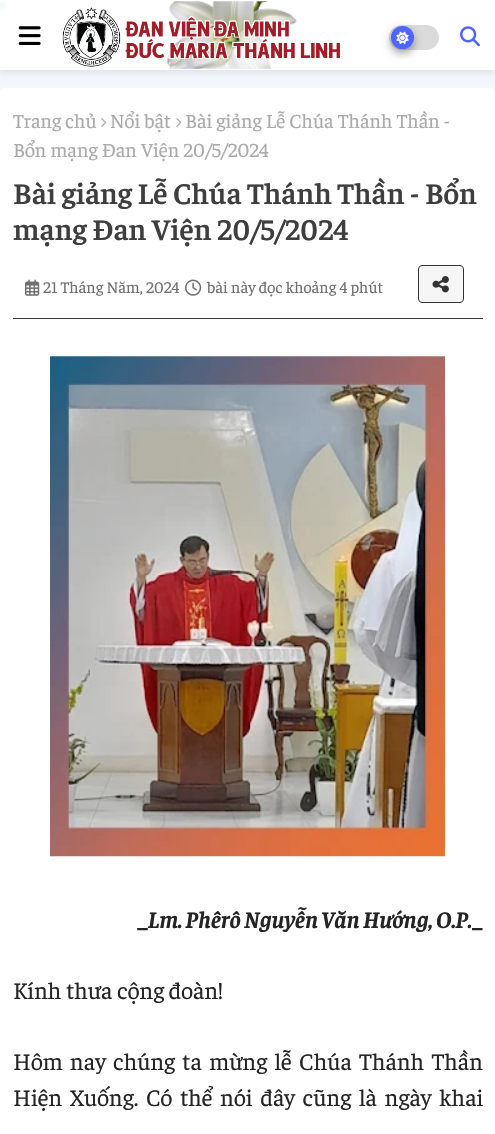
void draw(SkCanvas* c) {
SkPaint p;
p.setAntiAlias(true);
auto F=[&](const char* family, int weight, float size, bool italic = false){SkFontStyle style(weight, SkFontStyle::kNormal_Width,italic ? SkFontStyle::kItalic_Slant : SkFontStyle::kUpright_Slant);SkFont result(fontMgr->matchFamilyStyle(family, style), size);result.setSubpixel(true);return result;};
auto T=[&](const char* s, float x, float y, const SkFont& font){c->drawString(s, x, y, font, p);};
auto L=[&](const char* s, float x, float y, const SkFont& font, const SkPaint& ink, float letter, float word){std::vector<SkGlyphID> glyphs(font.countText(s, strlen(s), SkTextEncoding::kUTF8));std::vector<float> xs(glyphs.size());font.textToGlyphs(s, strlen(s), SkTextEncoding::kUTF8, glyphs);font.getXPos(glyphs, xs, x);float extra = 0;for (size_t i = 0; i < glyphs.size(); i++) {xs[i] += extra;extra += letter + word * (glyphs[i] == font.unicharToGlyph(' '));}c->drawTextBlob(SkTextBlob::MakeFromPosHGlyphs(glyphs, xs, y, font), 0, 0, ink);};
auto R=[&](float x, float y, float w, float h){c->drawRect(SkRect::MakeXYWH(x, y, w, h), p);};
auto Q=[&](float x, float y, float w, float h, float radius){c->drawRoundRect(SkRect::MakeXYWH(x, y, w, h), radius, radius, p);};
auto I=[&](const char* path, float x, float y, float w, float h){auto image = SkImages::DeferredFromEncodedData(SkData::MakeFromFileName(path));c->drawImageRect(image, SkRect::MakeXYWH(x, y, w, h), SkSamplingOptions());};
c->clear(0xfff3f8ff);
p.setColor(0x12000000);
p.setMaskFilter(SkMaskFilter::MakeBlur(kNormal_SkBlurStyle, 3));
c->drawRect(SkRect::MakeXYWH(-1,1,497,73),p);
p.setMaskFilter(nullptr);
p.setColor(0xffffffff);
R(0,0,495,70);
p.setColor(0xb5bce6f5);
p.setMaskFilter(SkMaskFilter::MakeBlur(kNormal_SkBlurStyle, 2.5));
c->drawRect(SkRect::MakeXYWH(0,3,3,5),p);
p.setMaskFilter(nullptr);
I("1.png",18,26,23,19);
I("2.png",166,1,131,68);
I("3.png",62,7,278,60);
p.setColor(0xffdbdbdb);
Q(389,25,50,25,12.5);
p.setColor(0x3b000000);
p.setMaskFilter(SkMaskFilter::MakeBlur(kNormal_SkBlurStyle, 4));
c->drawRoundRect(SkRect::MakeXYWH(391,30,23,23),11.5,11.5,p);
p.setMaskFilter(nullptr);
p.setColor(0x29000000);
p.setMaskFilter(SkMaskFilter::MakeBlur(kNormal_SkBlurStyle, 4));
c->drawRoundRect(SkRect::MakeXYWH(391,30,23,23),11.5,11.5,p);
p.setMaskFilter(nullptr);
p.setColor(0xff4e65ff);
c->drawCircle(402.5,37.5,11.5,p);
I("4.png",396,31,13,13);
I("5.png",460,26,20,21);
p.setColor(0xffffffff);
Q(0,88,495,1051,5);
auto f1 = F("Faustina",300,20);
p.setColor(0xffaaaaaa);
T("Trang chủ",13,128,f1);
I("6.png",101,118,6,9);
T("Nổi bật",110,128,f1);
I("6.png",176,118,6,9);
T("Bài giảng Lễ Chúa Thánh Thần -",185,128,f1);
T("Bổn mạng Đan Viện 20/5/2024",13,157,f1);
auto f2 = F("Faustina",600,30);
p.setColor(0xff3e3e3e);
T("Bài giảng Lễ Chúa Thánh Thần - Bổn",13,204,f2);
T("mạng Đan Viện 20/5/2024",13,240,f2);
p.setColor(0xff343434);
R(13,318,470,1);
I("7.png",25,279,15,17);
auto f3 = F("Faustina",300,16.25);
p.setColor(0xff707070);
T("21 Tháng Năm, 2024",43,293,f3);
I("8.png",185,279,17,17);
T("bài này đọc khoảng 4 phút",207,293,f3);
p.setColor(0xfff6f6f6);
c->drawRoundRect(SkRect::MakeXYWH(418.5,265.5,45,37),3.5,3.5,p);
p.setStroke(true);
p.setStrokeWidth(1);
p.setColor(0xff333333);
c->drawRoundRect(SkRect::MakeXYWH(418.5,265.5,45,37),3.5,3.5,p);
I("9.png",432,276,17,17);
I("10.png",50,356,395,501);
auto f4 = F("Faustina",300,23.75,true);
p.setStroke(false);
p.setColor(0xff252424);
T("_Lm. Phêrô Nguyễn Văn Hướng, O.P._",137,928,f4);
auto f5 = F("Faustina",300,23.75);
T("Kính thưa cộng đoàn!",13,999,f5);
L("Hôm nay chúng ta mừng lễ Chúa Thánh Thần",13,1070,f5,p,0,2.5);
L("Hiện Xuống. Có thể nói đây cũng là ngày khai",13,1106,f5,p,0,3);
}
